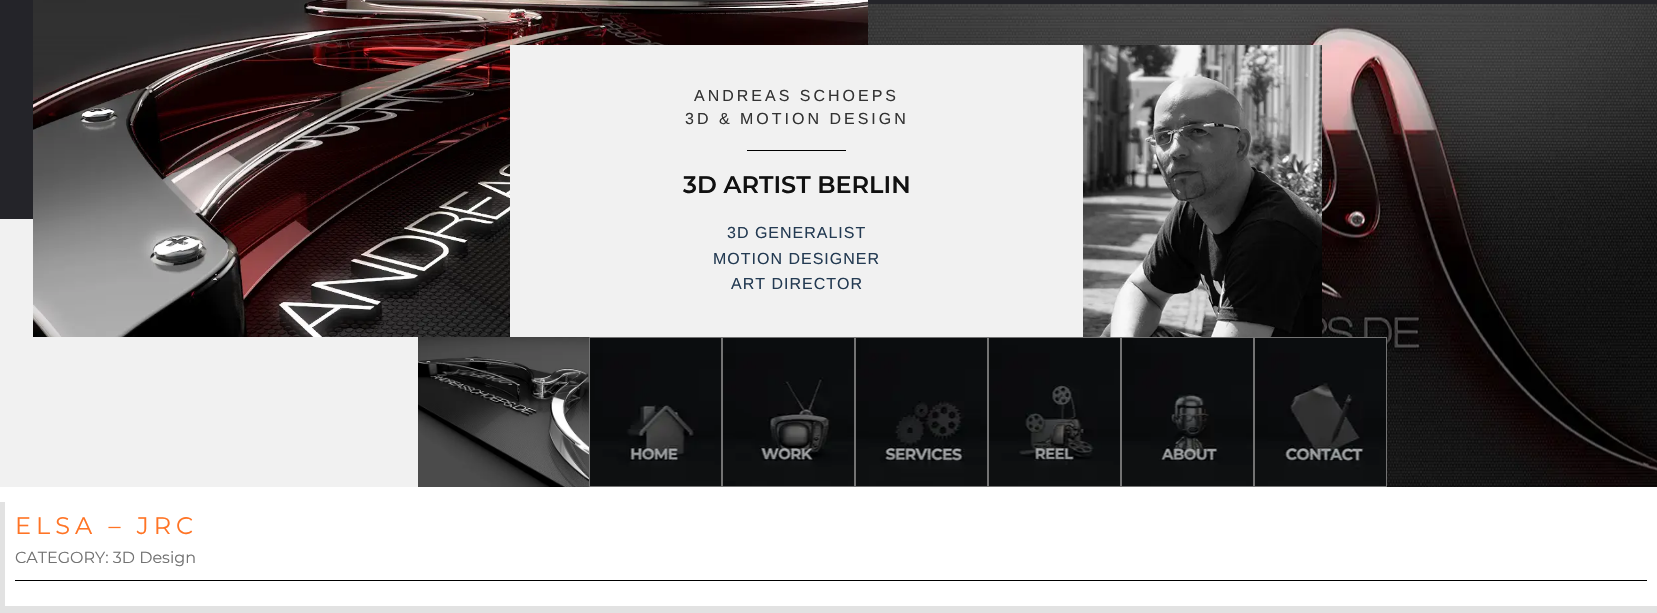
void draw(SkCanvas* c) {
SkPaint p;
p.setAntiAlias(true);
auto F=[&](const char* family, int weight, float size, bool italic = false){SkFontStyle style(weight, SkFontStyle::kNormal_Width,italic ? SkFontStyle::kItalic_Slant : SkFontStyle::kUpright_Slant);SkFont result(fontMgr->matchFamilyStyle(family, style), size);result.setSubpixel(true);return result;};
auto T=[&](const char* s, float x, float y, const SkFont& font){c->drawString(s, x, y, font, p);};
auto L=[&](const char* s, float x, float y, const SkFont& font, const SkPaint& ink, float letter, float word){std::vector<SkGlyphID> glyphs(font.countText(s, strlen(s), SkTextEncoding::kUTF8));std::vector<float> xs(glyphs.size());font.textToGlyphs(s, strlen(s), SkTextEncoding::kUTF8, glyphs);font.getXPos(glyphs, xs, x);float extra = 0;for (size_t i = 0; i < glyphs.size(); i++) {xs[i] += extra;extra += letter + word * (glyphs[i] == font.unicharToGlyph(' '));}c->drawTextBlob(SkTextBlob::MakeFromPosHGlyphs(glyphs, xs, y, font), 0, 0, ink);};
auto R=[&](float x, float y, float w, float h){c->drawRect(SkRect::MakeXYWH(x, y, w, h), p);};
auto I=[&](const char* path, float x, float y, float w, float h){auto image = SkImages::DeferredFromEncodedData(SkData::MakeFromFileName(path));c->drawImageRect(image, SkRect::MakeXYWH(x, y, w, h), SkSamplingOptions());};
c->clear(0xffffffff);
p.setColor(0xff242429);
R(0,0,1657,219);
p.setColor(0xfff1f1f1);
R(0,219,418,268);
I("1.png",33,0,835,337);
I("10.png",868,4,789,483);
R(510,45,573,292);
auto f1 = F("Liberation Sans",400,16);
p.setColor(0xff333333);
L("ANDREAS SCHOEPS",694,101,f1,p,3,0);
L("3D & MOTION DESIGN",685,124,f1,p,3,0);
p.setColor(0xff000000);
R(747,150,99,1);
auto f2 = F("Montserrat",100,24);
p.setColor(0xff111111);
T("3D ARTIST BERLIN",683,193,f2);
p.setColor(0xff243b53);
L("3D GENERALIST",727,238,f1,p,1,0);
L("MOTION DESIGNER",713,264,f1,p,1,0);
L("ART DIRECTOR",731,289,f1,p,1,0);
I("2.png",1083,45,239,292);
I("3.png",418,337,171,150);
I("4.png",590,338,131,148);
p.setStroke(true);
p.setStrokeWidth(1);
p.setColor(0xff737373);
c->drawRect(SkRect::MakeXYWH(589.5,337.5,132,149),p);
I("5.png",723,338,131,148);
c->drawRect(SkRect::MakeXYWH(722.5,337.5,132,149),p);
I("6.png",856,338,131,148);
c->drawRect(SkRect::MakeXYWH(855.5,337.5,132,149),p);
I("7.png",989,338,131,148);
c->drawRect(SkRect::MakeXYWH(988.5,337.5,132,149),p);
I("8.png",1122,338,131,148);
c->drawRect(SkRect::MakeXYWH(1121.5,337.5,132,149),p);
I("9.png",1255,338,131,148);
c->drawRect(SkRect::MakeXYWH(1254.5,337.5,132,149),p);
p.setStroke(false);
p.setColor(0xffe2e2e2);
R(0,502,5,104);
auto f3 = F("Montserrat",400,24);
p.setColor(0xffff7425);
L("ELSA – JRC",15,534,f3,p,5,0);
auto f4 = F("Montserrat",400,16);
p.setColor(0xff727272);
T("CATEGORY: 3D Design",15,563,f4);
p.setColor(0xff000000);
R(15,580,1632,1);
p.setColor(0xffe2e2e2);
R(0,606,1657,7);
}
